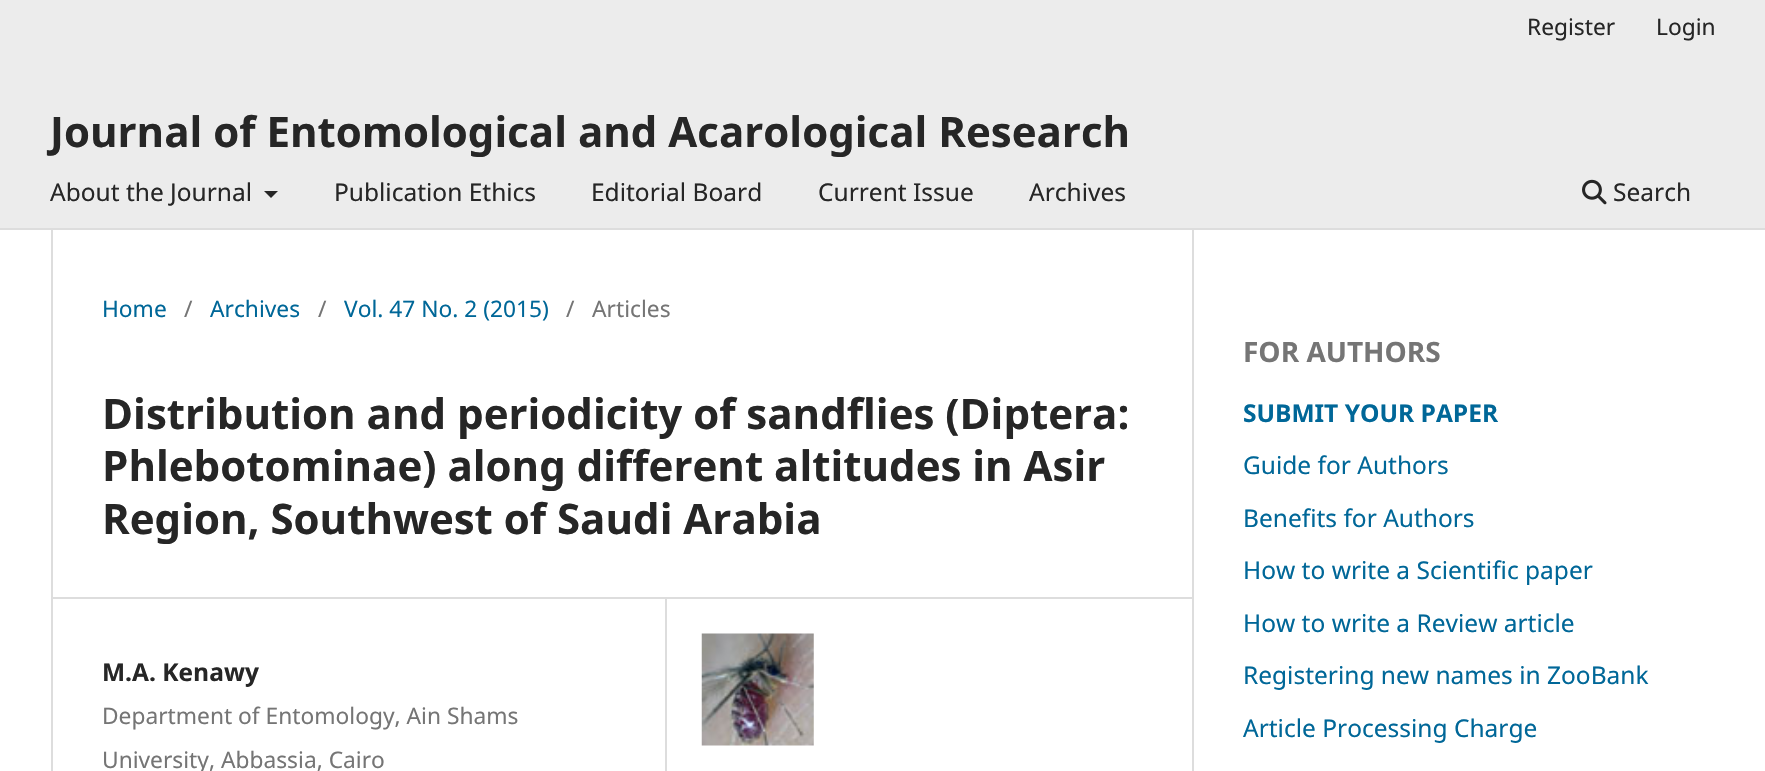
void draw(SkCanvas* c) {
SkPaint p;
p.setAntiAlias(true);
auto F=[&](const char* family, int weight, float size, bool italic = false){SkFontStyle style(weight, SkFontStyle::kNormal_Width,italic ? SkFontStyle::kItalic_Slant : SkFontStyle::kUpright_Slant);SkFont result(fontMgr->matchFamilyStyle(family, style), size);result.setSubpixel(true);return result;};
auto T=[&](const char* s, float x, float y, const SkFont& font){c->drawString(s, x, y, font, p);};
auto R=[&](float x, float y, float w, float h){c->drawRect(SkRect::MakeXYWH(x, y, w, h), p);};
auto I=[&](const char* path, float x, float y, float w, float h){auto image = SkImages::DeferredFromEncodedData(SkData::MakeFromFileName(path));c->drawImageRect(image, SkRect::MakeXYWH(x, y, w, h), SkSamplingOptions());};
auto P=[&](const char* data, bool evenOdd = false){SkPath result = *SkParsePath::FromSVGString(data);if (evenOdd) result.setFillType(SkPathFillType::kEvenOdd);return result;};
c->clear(0xffffffff);
p.setColor(0xffececec);
R(0,0,1765,228);
p.setColor(0xffdddddd);
R(0,228,1765,2);
auto f1 = F("Noto Sans",400,22.75);
p.setColor(0xff262626);
T("Register",1527,35,f1);
T("Login",1656,35,f1);
auto f2 = F("Noto Sans",400,24.5);
T("About the Journal",50,201,f2);
c->drawPath(P("M264 191h14l-7 7z"),p);
T("Publication Ethics",334,201,f2);
T("Editorial Board",591,201,f2);
T("Current Issue",818,201,f2);
T("Archives",1029,201,f2);
I("1.png",1582,179,25,26);
T("Search",1613,201,f2);
auto f3 = F("Noto Sans",700,42);
T("Journal of Entomological and Acarological Research",50,147,f3);
p.setColor(0xffdddddd);
R(51,597,1141,2);
R(51,229,2,542);
p.setColor(0xff006798);
T("Home",102,317,f1);
p.setColor(0xff757575);
T("/",184,317,f1);
p.setColor(0xff006798);
T("Archives",210,317,f1);
p.setColor(0xff757575);
T("/",318,317,f1);
p.setColor(0xff006798);
T("Vol. 47 No. 2 (2015)",344,317,f1);
p.setColor(0xff757575);
T("/",566,317,f1);
T("Articles",592,317,f1);
p.setColor(0xff262626);
T("Distribution and periodicity of sandflies (Diptera:",102,429,f3);
T("Phlebotominae) along different altitudes in Asir",102,481,f3);
T("Region, Southwest of Saudi Arabia",102,534,f3);
p.setColor(0xffdddddd);
R(665,599,2,172);
auto f4 = F("Noto Sans",700,24.5);
p.setColor(0xff262626);
T("M.A. Kenawy",102,681,f4);
p.setColor(0xff757575);
T("Department of Entomology, Ain Shams",102,724,f1);
T("University, Abbassia, Cairo",102,768,f1);
I("2.png",701,633,113,113);
p.setColor(0xffdddddd);
R(1192,229,2,542);
auto f5 = F("Noto Sans",700,28);
p.setColor(0xff757575);
T("FOR AUTHORS",1243,362,f5);
p.setColor(0xff006798);
T("SUBMIT YOUR PAPER",1243,422,f4);
T("Guide for Authors",1243,474,f2);
T("Benefits for Authors",1243,527,f2);
T("How to write a Scientific paper",1243,579,f2);
T("How to write a Review article",1243,632,f2);
T("Registering new names in ZooBank",1243,684,f2);
T("Article Processing Charge",1243,737,f2);
}
